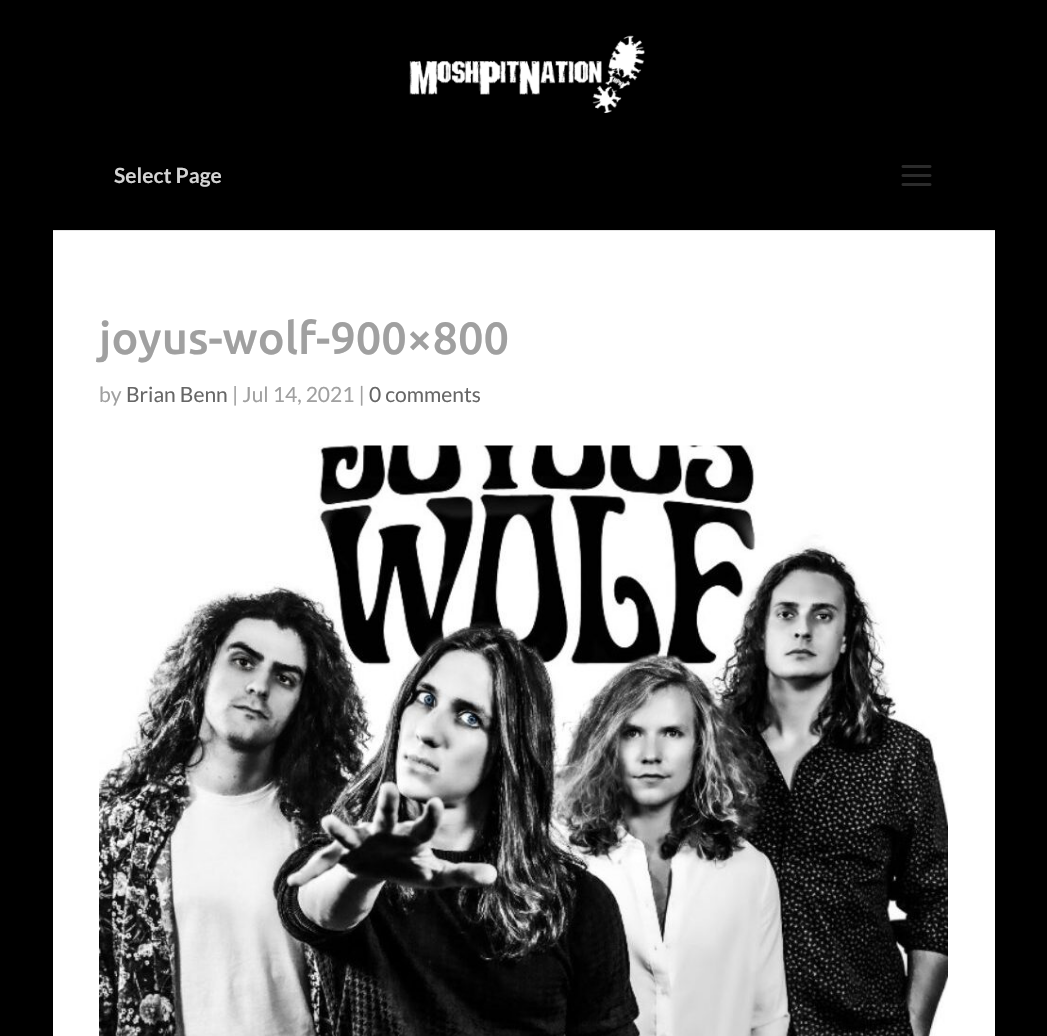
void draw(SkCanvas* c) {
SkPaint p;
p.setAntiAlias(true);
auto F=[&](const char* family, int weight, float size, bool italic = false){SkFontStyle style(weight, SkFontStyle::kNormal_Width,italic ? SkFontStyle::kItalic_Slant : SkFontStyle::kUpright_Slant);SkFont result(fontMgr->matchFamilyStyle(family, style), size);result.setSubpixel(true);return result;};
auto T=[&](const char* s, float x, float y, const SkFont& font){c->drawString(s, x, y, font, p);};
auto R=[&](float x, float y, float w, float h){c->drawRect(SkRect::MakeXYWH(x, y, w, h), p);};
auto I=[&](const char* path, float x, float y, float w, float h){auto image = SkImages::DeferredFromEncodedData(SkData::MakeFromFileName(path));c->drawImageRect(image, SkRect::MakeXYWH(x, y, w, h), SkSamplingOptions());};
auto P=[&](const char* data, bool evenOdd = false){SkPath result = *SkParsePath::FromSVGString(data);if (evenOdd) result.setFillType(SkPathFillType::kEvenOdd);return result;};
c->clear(0xff000000);
p.setColor(0xffffffff);
R(53,230,942,806);
p.setColor(0x1a000000);
c->drawPath(P("M53 230v1h942v-229h-1v228z"),p);
I("1.png",409,35,236,79);
auto f1 = F("Lato",700,21);
p.setColor(0xffd3d3d3);
T("Select Page",114,183,f1);
I("2.png",901,165,31,21);
auto f2 = F("Ubuntu",500,45);
p.setColor(0xffa0a0a0);
T("joyus-wolf-900×800",99,354,f2);
auto f3 = F("Lato",400,21);
T("by",99,402,f3);
p.setColor(0xff666666);
T("Brian Benn",126,402,f3);
p.setColor(0xffa0a0a0);
T("| Jul 14, 2021 |",232,402,f3);
p.setColor(0xff666666);
T("0 comments",369,402,f3);
I("3.png",99,445,849,591);
}
